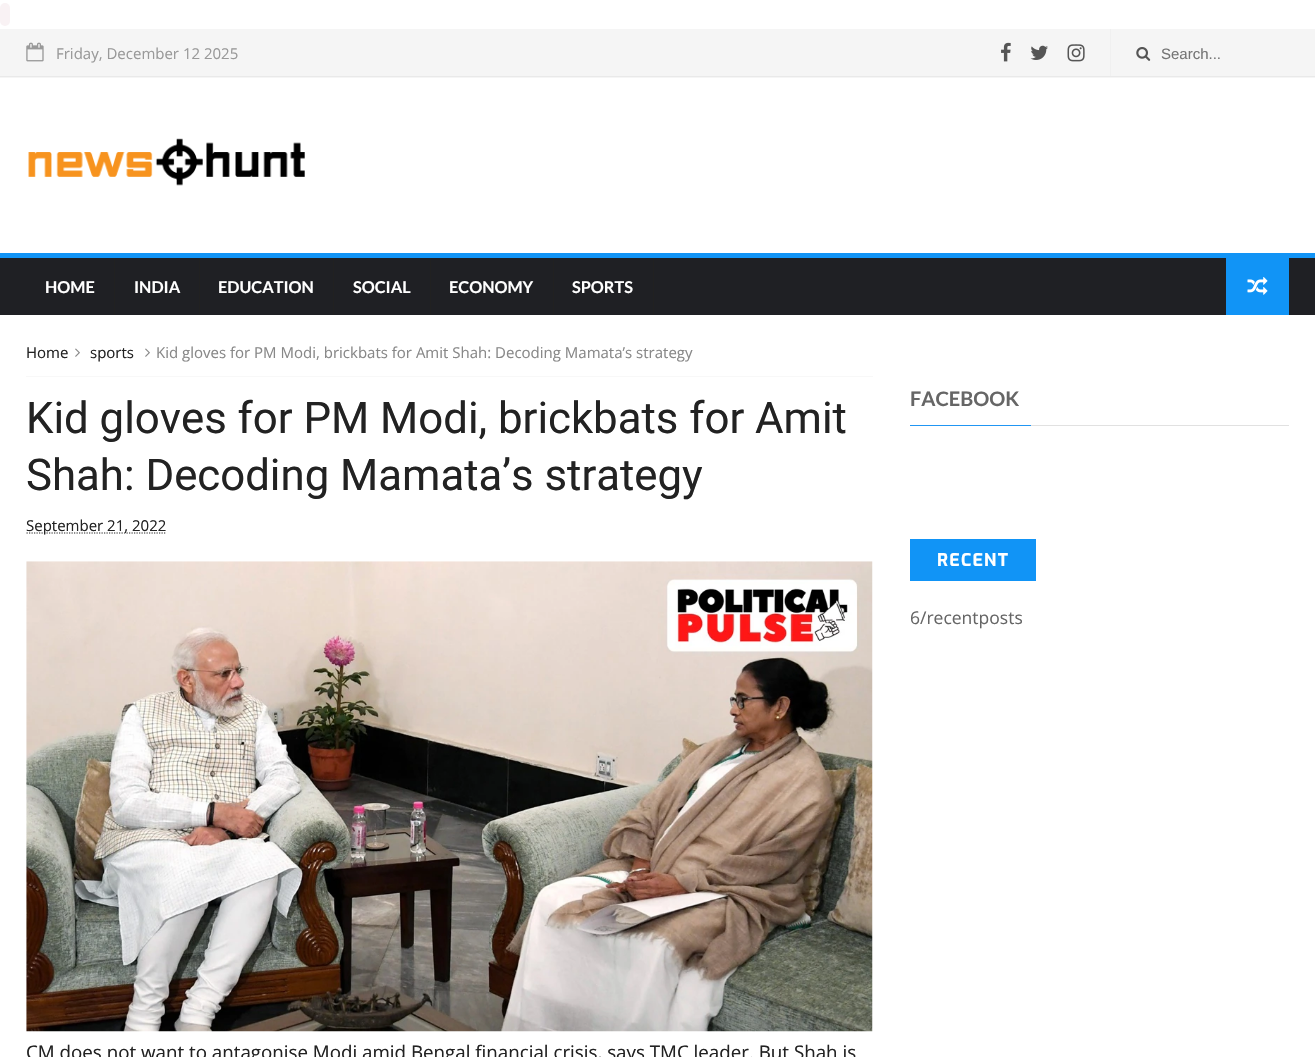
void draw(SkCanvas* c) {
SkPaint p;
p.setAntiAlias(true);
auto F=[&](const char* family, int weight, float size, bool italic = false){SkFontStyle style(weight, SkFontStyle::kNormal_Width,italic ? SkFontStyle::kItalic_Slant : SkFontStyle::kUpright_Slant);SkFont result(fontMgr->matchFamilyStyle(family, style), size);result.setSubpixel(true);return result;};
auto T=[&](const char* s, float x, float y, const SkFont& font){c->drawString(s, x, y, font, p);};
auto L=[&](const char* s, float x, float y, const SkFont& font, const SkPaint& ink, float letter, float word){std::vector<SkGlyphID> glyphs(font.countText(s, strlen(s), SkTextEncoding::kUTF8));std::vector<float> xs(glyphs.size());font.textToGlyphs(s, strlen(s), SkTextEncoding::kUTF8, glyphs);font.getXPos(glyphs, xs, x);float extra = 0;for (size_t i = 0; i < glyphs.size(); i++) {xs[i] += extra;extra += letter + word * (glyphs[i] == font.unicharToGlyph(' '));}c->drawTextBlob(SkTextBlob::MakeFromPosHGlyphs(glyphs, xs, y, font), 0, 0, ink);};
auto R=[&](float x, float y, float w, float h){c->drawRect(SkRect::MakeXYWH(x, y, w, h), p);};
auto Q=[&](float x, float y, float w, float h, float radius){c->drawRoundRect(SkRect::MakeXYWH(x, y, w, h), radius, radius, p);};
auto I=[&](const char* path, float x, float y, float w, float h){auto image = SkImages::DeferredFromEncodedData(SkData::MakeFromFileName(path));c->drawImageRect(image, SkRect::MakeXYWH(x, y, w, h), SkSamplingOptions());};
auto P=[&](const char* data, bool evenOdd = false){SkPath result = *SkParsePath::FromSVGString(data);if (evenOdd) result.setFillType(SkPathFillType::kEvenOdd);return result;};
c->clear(0xffffffff);
p.setColor(0xfff9f2f4);
Q(0,3,10,23,5);
p.setColor(0xfff5f5f5);
R(0,29,1315,49);
p.setColor(0xffe9e9e9);
R(0,76,1315,1);
I("1.png",26,42,18,20);
auto f1 = F("Open Sans",400,15);
p.setColor(0xff999999);
T("Friday, December 12 2025",56,59,f1);
I("2.png",1001,42,10,20);
I("3.png",1030,45,18,15);
I("4.png",1067,44,18,18);
p.setColor(0xfff0f0f0);
R(1110,29,1,47);
I("5.png",1136,47,15,14);
auto f2 = F("Liberation Sans",400,15);
p.setColor(0xff757575);
T("Search...",1161,59,f2);
I("6.png",28,138,277,48);
p.setColor(0xff1f2024);
R(0,258,1315,57);
p.setColor(0xff1194f6);
R(0,253,1315,5);
p.setColor(0xff212121);
R(114,258,1,57);
auto f3 = F("Lato",700,16.25);
p.setColor(0xffffffff);
T("HOME",45,293,f3);
p.setColor(0xff212121);
R(199,258,1,57);
p.setColor(0xffffffff);
T("INDIA",134,293,f3);
p.setColor(0xff212121);
R(333,258,1,57);
p.setColor(0xffffffff);
T("EDUCATION",218,293,f3);
p.setColor(0xff212121);
R(430,258,1,57);
p.setColor(0xffffffff);
T("SOCIAL",353,293,f3);
p.setColor(0xff212121);
R(553,258,1,57);
p.setColor(0xffffffff);
T("ECONOMY",449,293,f3);
p.setColor(0xff212121);
R(653,258,1,57);
p.setColor(0xffffffff);
T("SPORTS",572,293,f3);
p.setColor(0xff1194f6);
R(1226,258,63,57);
I("7.png",1247,277,21,18);
p.setColor(0xfff8f8f8);
R(26,376,847,1);
p.setColor(0xff222222);
T("Home",26,358,f1);
I("8.png",75,348,5,9);
T("sports",90,358,f1);
I("8.png",145,348,5,9);
p.setColor(0xff888888);
T("Kid gloves for PM Modi, brickbats for Amit Shah: Decoding Mamata’s strategy",156,358,f1);
auto f4 = F("Roboto",400,43.75);
p.setColor(0xff222222);
T("Kid gloves for PM Modi, brickbats for Amit",26,433,f4);
T("Shah: Decoding Mamata’s strategy",26,490,f4);
p.setStroke(true);
p.setStrokeWidth(1.2);
p.setPathEffect(SkDashPathEffect::Make({{1.25f,1.25f}}, 0));
c->drawPath(P("M26.5 533h140"),p);
p.setPathEffect(nullptr);
p.setStroke(false);
T("September 21, 2022",26,531,f1);
I("9.png",26,561,847,471);
auto f5 = F("Open Sans",400,18.75);
T("CM does not want to antagonise Modi amid Bengal financial crisis, says TMC leader. But Shah is",26,1059,f5);
p.setColor(0xffe1e1e1);
R(1031,425,258,1);
auto f6 = F("Lato",700,20);
p.setColor(0xff666666);
T("FACEBOOK",910,406,f6);
p.setColor(0xff2196f3);
R(910,425,121,1);
p.setColor(0xff1194f6);
R(910,539,126,42);
auto f7 = F("Exo",700,17.5);
p.setColor(0xffffffff);
L("RECENT",937,566,f7,p,1.25,0);
auto f8 = F("Open Sans",400,17.5);
p.setColor(0xff666666);
T("6/recentposts",910,624,f8);
}
